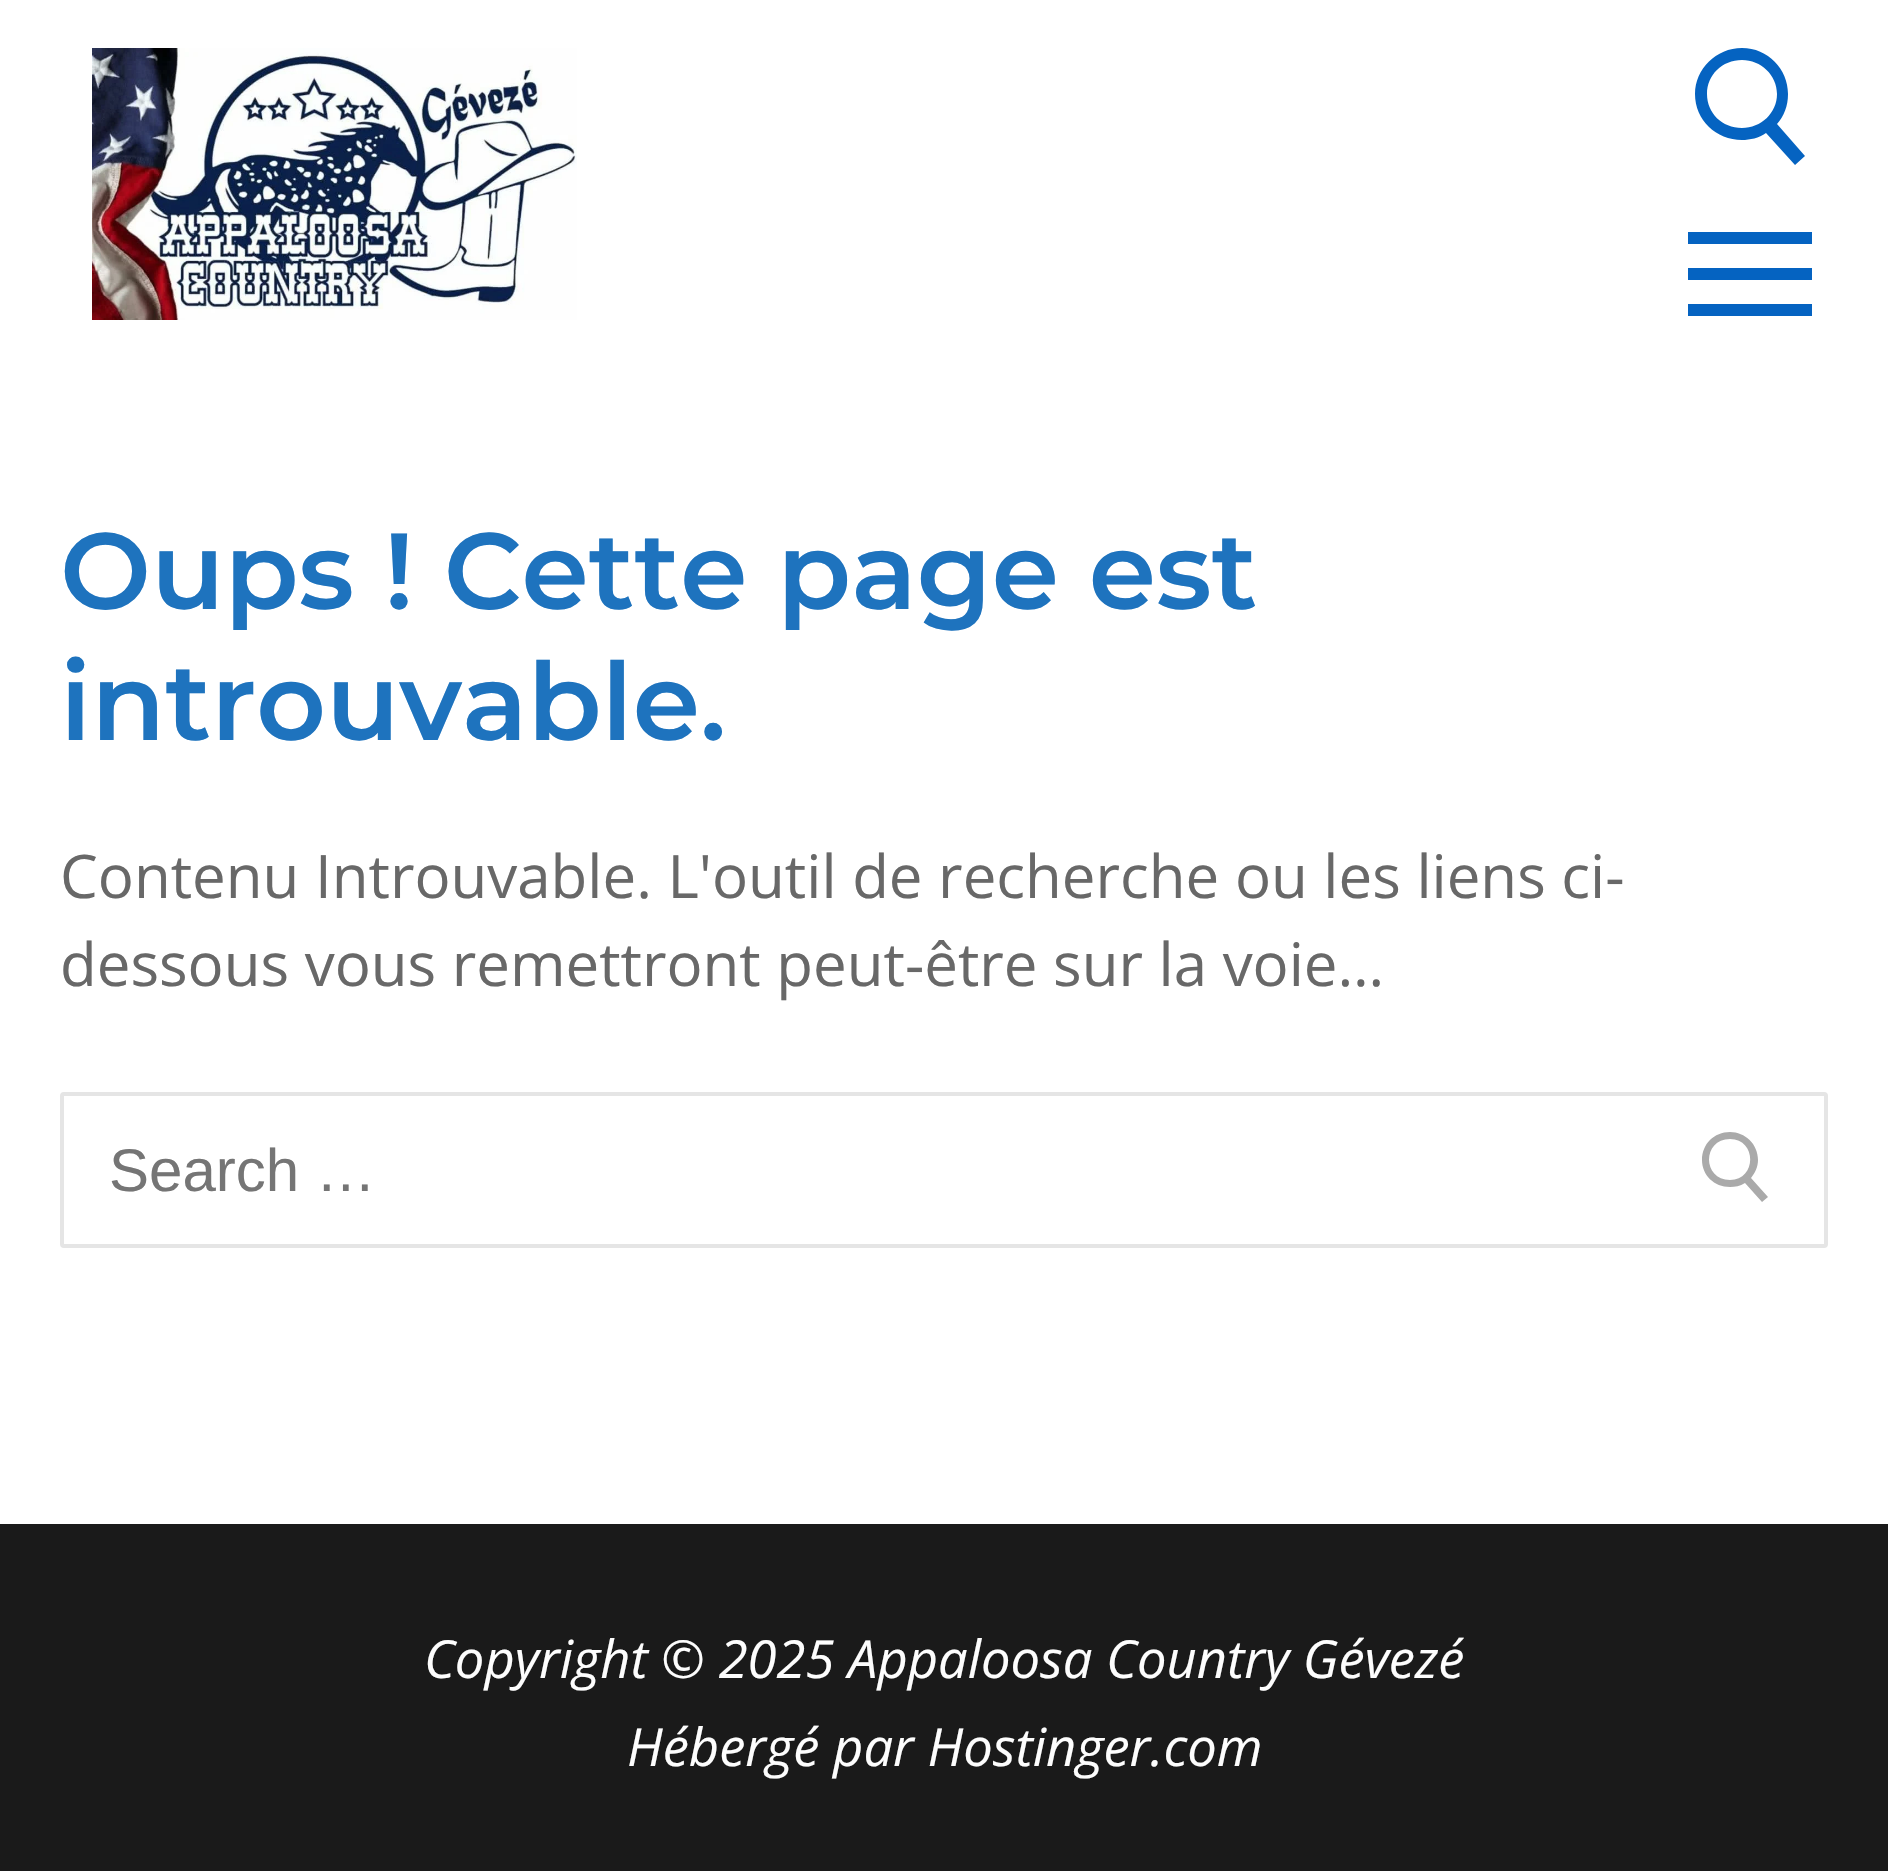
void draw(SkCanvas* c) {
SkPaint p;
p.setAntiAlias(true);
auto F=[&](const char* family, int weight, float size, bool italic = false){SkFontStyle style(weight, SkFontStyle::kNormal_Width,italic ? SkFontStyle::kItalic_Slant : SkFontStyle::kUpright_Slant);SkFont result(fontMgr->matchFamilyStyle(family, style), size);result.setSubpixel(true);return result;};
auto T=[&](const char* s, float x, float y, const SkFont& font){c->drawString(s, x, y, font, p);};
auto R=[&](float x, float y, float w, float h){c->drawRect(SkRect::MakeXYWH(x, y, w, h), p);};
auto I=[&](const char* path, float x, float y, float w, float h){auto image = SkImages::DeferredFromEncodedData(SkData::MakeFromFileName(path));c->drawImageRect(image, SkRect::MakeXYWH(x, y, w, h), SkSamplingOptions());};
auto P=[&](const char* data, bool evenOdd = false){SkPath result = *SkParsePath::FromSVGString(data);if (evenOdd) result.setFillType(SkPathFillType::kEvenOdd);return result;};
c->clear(0xffffffff);
I("1.png",92,48,485,272);
p.setColor(0xff0563c1);
R(1688,268,124,12);
R(1688,232,124,12);
R(1688,304,124,12);
c->drawPath(P("M1766 133c-7 5-16 7-24 7c-26 0-47-20-47-46c0-25 21-46 47-46c26 0 46 21 46 46c0 12-4 22-11 30l28 32l-10 9zm-24-5c19 0 35-15 35-34c0-19-16-34-35-34c-20 0-35 15-35 34c0 19 15 34 35 34z",true),p);
auto f1 = F("Montserrat",600,108);
p.setColor(0xff1e73be);
T("Oups ! Cette page est",60,609,f1);
T("introuvable.",60,740,f1);
auto f2 = F("Open Sans",400,60);
p.setColor(0xff686868);
T("Contenu Introuvable. L'outil de recherche ou les liens ci-",60,898,f2);
T("dessous vous remettront peut-être sur la voie…",60,986,f2);
p.setStroke(true);
p.setStrokeWidth(4);
p.setColor(0xffe5e5e5);
c->drawRoundRect(SkRect::MakeXYWH(62,1094,1764,152),2,2,p);
auto f3 = F("Liberation Sans",400,60);
p.setStroke(false);
p.setColor(0xff757575);
T("Search …",109,1191,f3);
p.setColor(0xffaaaaaa);
c->drawPath(P("M1745 1183c-5 3-10 4-15 4c-16 0-28-12-28-27c0-16 12-28 28-28c15 0 28 12 28 28c0 7-3 13-7 18l17 19l-6 5zm-15-3c27 0 27-41 0-41c-28 0-28 41 0 41z",true),p);
p.setColor(0xff1a1a1a);
R(0,1524,1888,347);
auto f4 = F("Open Sans",400,52.5,true);
p.setColor(0xfffdfdfd);
T("Copyright © 2025 Appaloosa Country Gévezé",424,1678,f4);
T("Hébergé par Hostinger.com",627,1766,f4);
}
